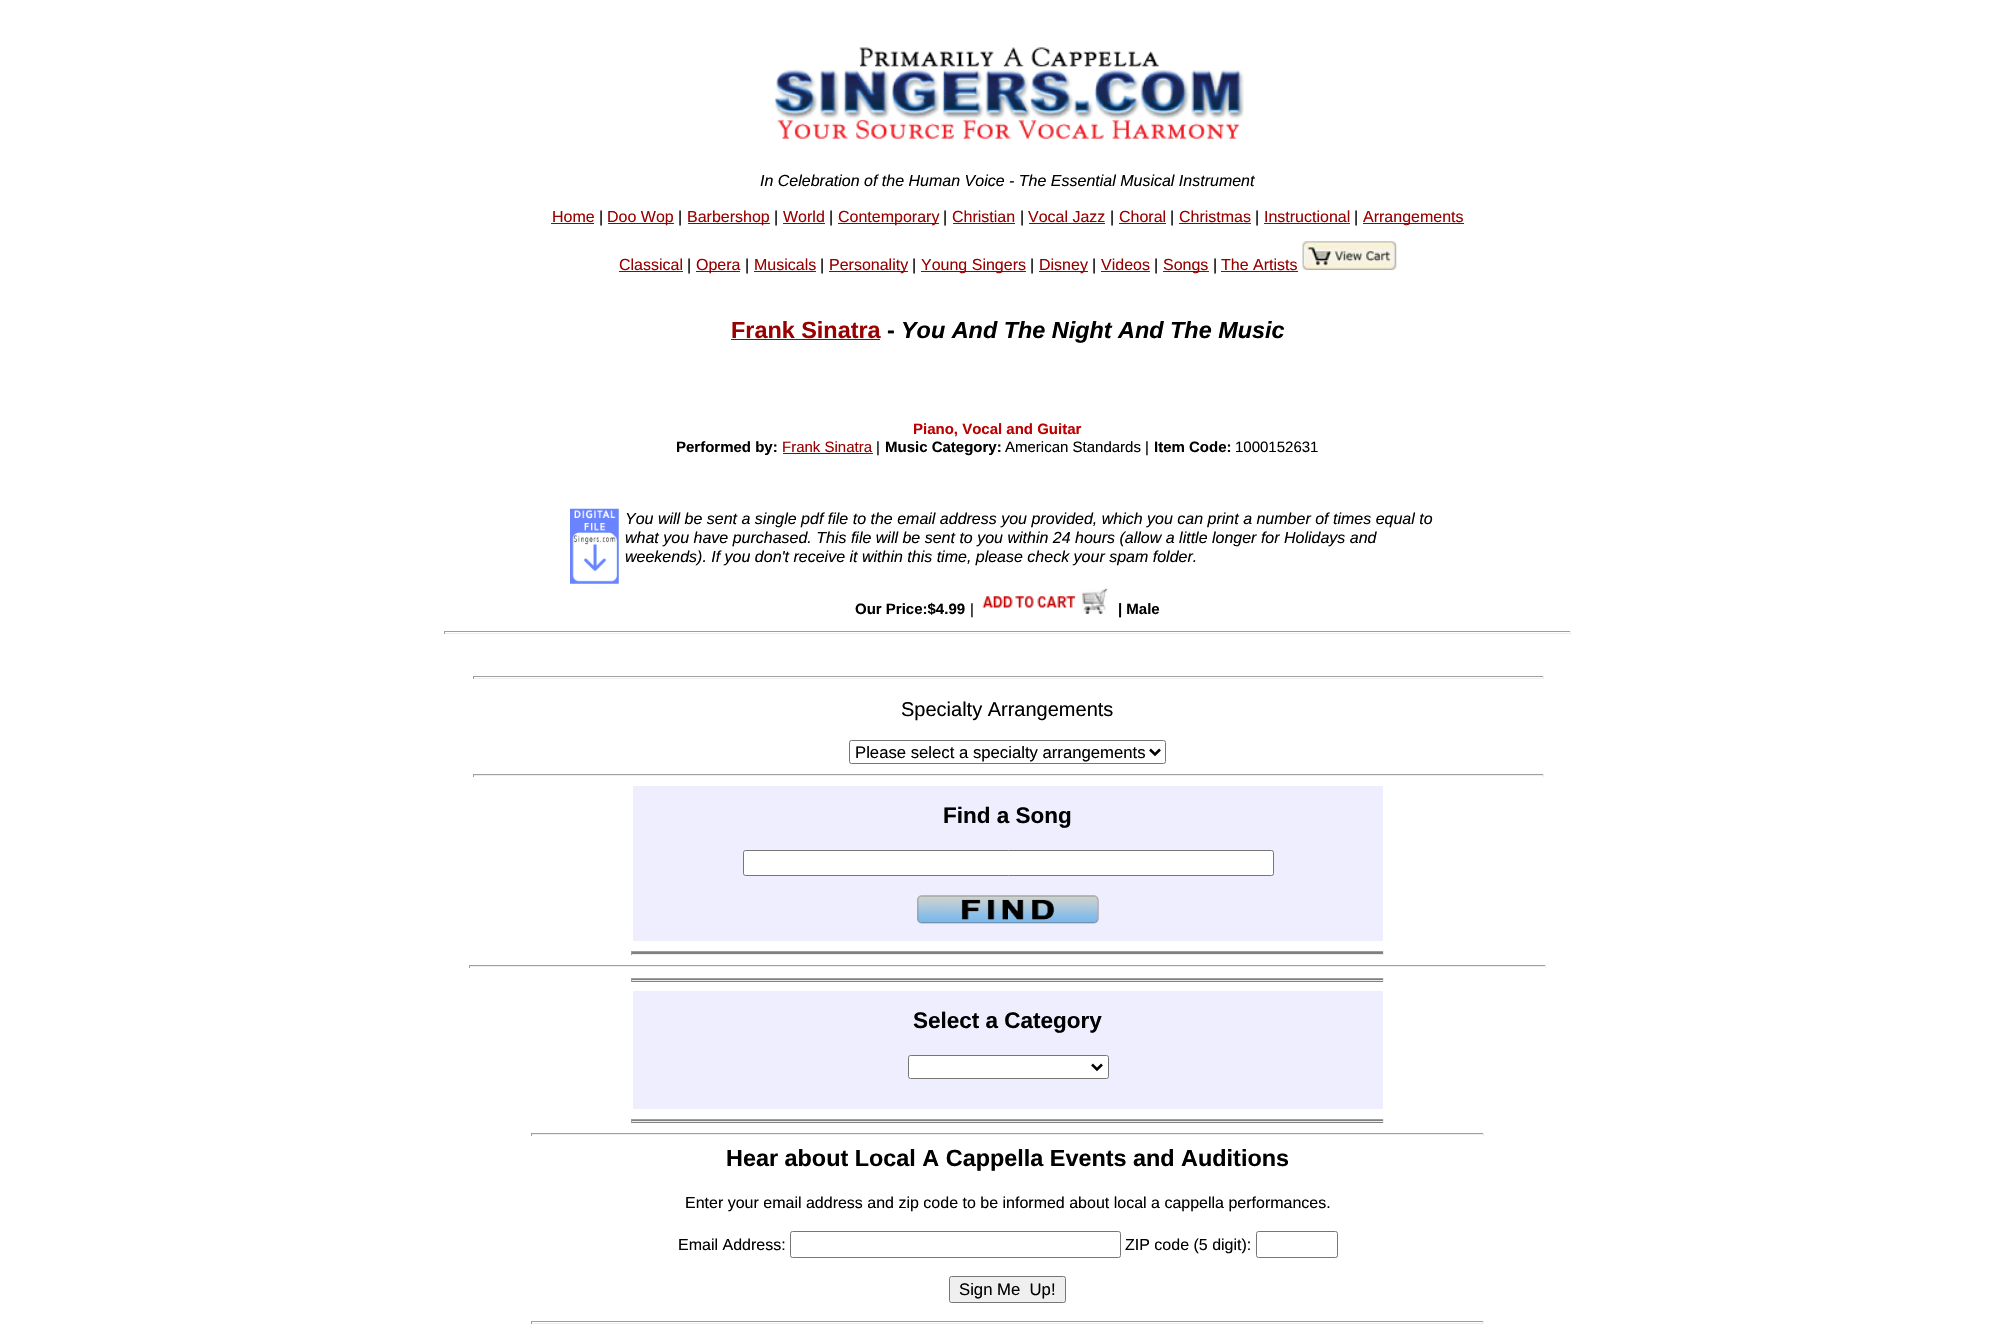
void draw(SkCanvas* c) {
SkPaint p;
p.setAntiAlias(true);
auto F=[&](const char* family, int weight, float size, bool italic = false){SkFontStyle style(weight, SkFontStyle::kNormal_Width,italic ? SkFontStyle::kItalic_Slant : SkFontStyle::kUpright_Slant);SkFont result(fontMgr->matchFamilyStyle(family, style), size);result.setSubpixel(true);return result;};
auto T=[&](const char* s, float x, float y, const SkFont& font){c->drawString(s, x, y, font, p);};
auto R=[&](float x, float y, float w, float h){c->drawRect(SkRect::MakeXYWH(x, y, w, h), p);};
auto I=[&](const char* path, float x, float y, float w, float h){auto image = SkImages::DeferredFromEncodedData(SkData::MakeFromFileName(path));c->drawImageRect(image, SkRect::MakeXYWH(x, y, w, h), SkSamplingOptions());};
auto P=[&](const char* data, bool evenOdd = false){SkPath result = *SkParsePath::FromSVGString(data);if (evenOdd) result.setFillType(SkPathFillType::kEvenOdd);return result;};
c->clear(0xffffffff);
I("1.png",774,47,470,92);
auto f1 = F("Liberation Sans",400,16,true);
p.setColor(0xff000000);
T("In Celebration of the Human Voice - The Essential Musical Instrument",760,186,f1);
auto f2 = F("Liberation Sans",400,16);
p.setColor(0xff990000);
T("Home",552,222,f2);
R(551,223,43,1);
p.setColor(0xff000000);
T("|",599,222,f2);
p.setColor(0xff990000);
R(608,223,66,1);
T("Doo Wop",607,222,f2);
p.setColor(0xff000000);
T("|",678,222,f2);
p.setColor(0xff990000);
R(688,223,82,1);
T("Barbershop",687,222,f2);
p.setColor(0xff000000);
T("|",774,222,f2);
p.setColor(0xff990000);
T("World",783,222,f2);
R(783,223,42,1);
p.setColor(0xff000000);
T("|",829,222,f2);
p.setColor(0xff990000);
R(838,223,101,1);
T("Contemporary",838,222,f2);
p.setColor(0xff000000);
T("|",943,222,f2);
p.setColor(0xff990000);
T("Christian",952,222,f2);
R(953,223,62,1);
p.setColor(0xff000000);
T("|",1020,222,f2);
p.setColor(0xff990000);
T("Vocal Jazz",1028,222,f2);
R(1029,223,76,1);
p.setColor(0xff000000);
T("|",1110,222,f2);
p.setColor(0xff990000);
T("Choral",1119,222,f2);
R(1119,223,47,1);
p.setColor(0xff000000);
T("|",1170,222,f2);
p.setColor(0xff990000);
T("Christmas",1179,222,f2);
R(1179,223,72,1);
p.setColor(0xff000000);
T("|",1255,222,f2);
p.setColor(0xff990000);
T("Instructional",1264,222,f2);
R(1264,223,86,1);
p.setColor(0xff000000);
T("|",1354,222,f2);
p.setColor(0xff990000);
R(1363,223,101,1);
T("Arrangements",1363,222,f2);
T("Classical",619,270,f2);
R(619,271,64,1);
p.setColor(0xff000000);
T("|",687,270,f2);
p.setColor(0xff990000);
R(696,271,44,1);
T("Opera",696,270,f2);
p.setColor(0xff000000);
T("|",745,270,f2);
p.setColor(0xff990000);
T("Musicals",754,270,f2);
R(754,271,62,1);
p.setColor(0xff000000);
T("|",820,270,f2);
p.setColor(0xff990000);
R(829,271,79,1);
T("Personality",829,270,f2);
p.setColor(0xff000000);
T("|",912,270,f2);
p.setColor(0xff990000);
R(921,271,105,1);
T("Young Singers",921,270,f2);
p.setColor(0xff000000);
T("|",1030,270,f2);
p.setColor(0xff990000);
R(1039,271,49,1);
T("Disney",1039,270,f2);
p.setColor(0xff000000);
T("|",1092,270,f2);
p.setColor(0xff990000);
T("Videos",1101,270,f2);
R(1101,271,49,1);
p.setColor(0xff000000);
T("|",1154,270,f2);
p.setColor(0xff990000);
R(1163,271,46,1);
T("Songs",1163,270,f2);
p.setColor(0xff000000);
T("|",1213,270,f2);
p.setColor(0xff990000);
T("The Artists",1221,270,f2);
R(1221,271,77,1);
I("2.png",1302,241,95,29);
auto f3 = F("Liberation Sans",700,23.4);
T("Frank Sinatra",731,338,f3);
R(731,339,149,1);
p.setColor(0xff000000);
T("-",887,338,f3);
auto f4 = F("Liberation Sans",700,23.4,true);
T("You And The Night And The Music",901,338,f4);
auto f5 = F("Liberation Sans",700,15);
p.setColor(0xffbb0000);
T("Piano, Vocal and Guitar",913,434,f5);
p.setColor(0xff000000);
T("Performed by:",676,452,f5);
auto f6 = F("Liberation Sans",400,15);
p.setColor(0xff990000);
T("Frank Sinatra",782,452,f6);
R(783,453,90,1);
p.setColor(0xff000000);
T("|",876,452,f6);
T("Music Category:",885,452,f5);
T("American Standards |",1005,452,f6);
T("Item Code:",1154,452,f5);
T("1000152631",1235,452,f6);
I("3.png",570,508,49,76);
T("You will be sent a single pdf file to the email address you provided, which you can print a number of times equal to",625,524,f1);
T("what you have purchased. This file will be sent to you within 24 hours (allow a little longer for Holidays and",625,543,f1);
T("weekends). If you don't receive it within this time, please check your spam folder.",625,562,f1);
T("Our Price:$4.99",855,614,f5);
T("|",970,614,f6);
I("4.png",982,588,126,26);
T("| Male",1118,614,f5);
p.setColor(0xff9f9f9f);
R(444,631,1127,1);
p.setColor(0xffeeeeee);
R(1570,631,1,3);
R(444,633,1127,1);
p.setColor(0xff9f9f9f);
R(444,631,1,3);
R(473,676,1071,1);
p.setColor(0xffeeeeee);
R(1543,676,1,3);
R(473,678,1071,1);
p.setColor(0xff9f9f9f);
R(473,676,1,3);
auto f7 = F("Liberation Sans",400,20);
p.setColor(0xff000000);
T("Specialty Arrangements",901,716,f7);
p.setStroke(true);
p.setStrokeWidth(1);
p.setColor(0xff767676);
c->drawRoundRect(SkRect::MakeXYWH(849.5,740.5,316,23),2,2,p);
p.setStrokeWidth(2.5);
p.setColor(0xff000000);
c->drawPath(P("M1150 749.5l5 5l5-5"),p);
auto f8 = F("Liberation Sans",400,16.7);
p.setStroke(false);
T("Please select a specialty arrangements",855,758,f8);
p.setColor(0xff9f9f9f);
R(473,774,1071,1);
p.setColor(0xffeeeeee);
R(1543,774,1,3);
R(473,775,1071,1);
p.setColor(0xff9f9f9f);
R(473,774,1,3);
p.setColor(0xffeeeeff);
R(633,786,750,155);
auto f9 = F("Liberation Sans",700,22.5);
p.setColor(0xff000000);
T("Find a Song",943,823,f9);
p.setColor(0xffffffff);
c->drawRoundRect(SkRect::MakeXYWH(743.5,850.5,530,25),2,2,p);
p.setStroke(true);
p.setStrokeWidth(1);
p.setColor(0xff767676);
c->drawRoundRect(SkRect::MakeXYWH(743.5,850.5,530,25),2,2,p);
I("5.png",917,895,182,29);
p.setStroke(false);
p.setColor(0xff808080);
R(631,952,753,2);
p.setColor(0xff9f9f9f);
R(631,951,753,1);
p.setColor(0xffeeeeee);
R(1383,951,1,4);
R(631,954,753,1);
p.setColor(0xff9f9f9f);
R(631,951,1,4);
R(469,965,1077,1);
p.setColor(0xffeeeeee);
R(1545,965,1,3);
R(469,966,1077,1);
p.setColor(0xff9f9f9f);
R(469,965,1,3);
p.setColor(0xff808080);
R(631,979,753,3);
p.setColor(0xff9f9f9f);
R(631,978,753,1);
p.setColor(0xffeeeeee);
R(1383,978,1,4);
R(631,980,753,1);
p.setColor(0xff9f9f9f);
R(631,978,1,4);
p.setColor(0xffeeeeff);
R(633,991,750,118);
p.setColor(0xff000000);
T("Select a Category",913,1028,f9);
p.setColor(0xffffffff);
c->drawRoundRect(SkRect::MakeXYWH(908.5,1055.5,200,23),2,2,p);
p.setStroke(true);
p.setColor(0xff767676);
c->drawRoundRect(SkRect::MakeXYWH(908.5,1055.5,200,23),2,2,p);
p.setStrokeWidth(2.5);
p.setColor(0xff000000);
c->drawPath(P("M1092 1064.5l5 5l5-5"),p);
p.setStroke(false);
p.setColor(0xff808080);
R(631,1120,753,3);
p.setColor(0xff9f9f9f);
R(631,1119,753,1);
p.setColor(0xffeeeeee);
R(1383,1119,1,4);
R(631,1121,753,1);
p.setColor(0xff9f9f9f);
R(631,1119,1,4);
R(531,1133,953,1);
p.setColor(0xffeeeeee);
R(1483,1133,1,3);
R(531,1134,953,1);
p.setColor(0xff9f9f9f);
R(531,1133,1,3);
p.setColor(0xff000000);
T("Hear about Local A Cappella Events and Auditions",726,1166,f3);
T("Enter your email address and zip code to be informed about local a cappella performances.",685,1208,f2);
T("Email Address:",678,1250,f2);
p.setStroke(true);
p.setStrokeWidth(1);
p.setColor(0xff767676);
c->drawRoundRect(SkRect::MakeXYWH(790.5,1231.5,330,26),2,2,p);
p.setStroke(false);
p.setColor(0xff000000);
T("ZIP code (5 digit):",1125,1250,f2);
p.setStroke(true);
p.setColor(0xff767676);
c->drawRoundRect(SkRect::MakeXYWH(1256.5,1231.5,81,26),2,2,p);
p.setStroke(false);
p.setColor(0xffefefef);
c->drawRoundRect(SkRect::MakeXYWH(949.5,1276.5,116,26),2,2,p);
p.setStroke(true);
p.setColor(0xff767676);
c->drawRoundRect(SkRect::MakeXYWH(949.5,1276.5,116,26),2,2,p);
p.setStroke(false);
p.setColor(0xff000000);
T("Sign Me  Up!",959,1295,f8);
p.setColor(0xff9f9f9f);
R(531,1321,953,1);
p.setColor(0xffeeeeee);
R(1483,1321,1,3);
R(531,1323,953,1);
p.setColor(0xff9f9f9f);
R(531,1321,1,3);
}
